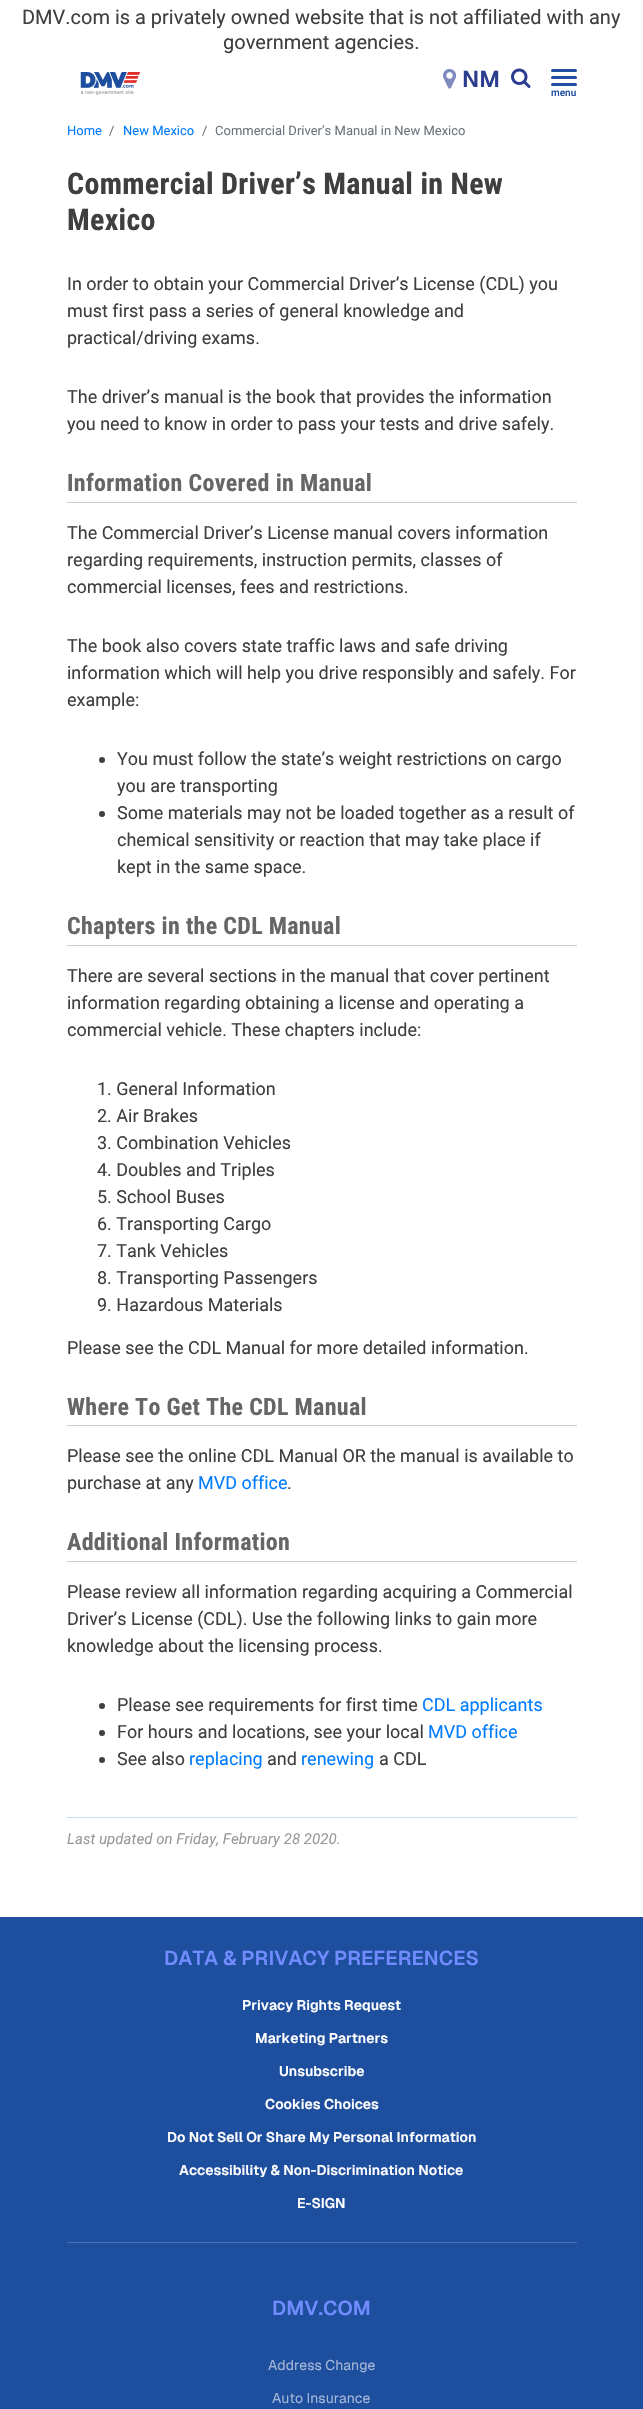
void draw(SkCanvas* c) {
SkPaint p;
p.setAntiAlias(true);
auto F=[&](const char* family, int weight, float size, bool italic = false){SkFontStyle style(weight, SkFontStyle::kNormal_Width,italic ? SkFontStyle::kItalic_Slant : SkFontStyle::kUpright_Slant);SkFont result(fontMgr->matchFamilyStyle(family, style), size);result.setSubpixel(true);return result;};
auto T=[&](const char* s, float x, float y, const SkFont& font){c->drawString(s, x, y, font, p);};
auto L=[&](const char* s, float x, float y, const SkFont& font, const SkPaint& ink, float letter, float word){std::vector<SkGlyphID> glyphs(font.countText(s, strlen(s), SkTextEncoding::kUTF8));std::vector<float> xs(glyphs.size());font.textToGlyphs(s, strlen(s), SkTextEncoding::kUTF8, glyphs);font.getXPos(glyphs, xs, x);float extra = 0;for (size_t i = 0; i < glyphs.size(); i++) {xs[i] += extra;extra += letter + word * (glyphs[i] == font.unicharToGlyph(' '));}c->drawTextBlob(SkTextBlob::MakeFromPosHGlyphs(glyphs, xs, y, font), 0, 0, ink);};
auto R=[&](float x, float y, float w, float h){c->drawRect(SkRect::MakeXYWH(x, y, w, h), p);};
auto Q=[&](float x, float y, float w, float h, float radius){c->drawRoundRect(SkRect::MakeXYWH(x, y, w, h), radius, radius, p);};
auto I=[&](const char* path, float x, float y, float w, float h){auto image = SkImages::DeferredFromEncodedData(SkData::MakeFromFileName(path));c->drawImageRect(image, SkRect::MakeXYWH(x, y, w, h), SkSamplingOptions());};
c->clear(0xffffffff);
auto f1 = F("Roboto",400,20);
p.setColor(0xff3f3f3f);
T("DMV.com is a privately owned website that is not affiliated with any",22,24,f1);
T("government agencies.",223,49,f1);
I("1.png",80,72,61,23);
I("2.png",443,68,14,21);
auto f2 = F("Geist",600,23);
p.setColor(0xff2a3d8f);
T("NM",462,87,f2);
I("3.png",511,68,20,20);
p.setColor(0xff1e4e9e);
Q(551,69,26,3,1.5);
Q(551,76,26,3,1.5);
Q(551,83,26,3,1.5);
auto f3 = F("Roboto",500,10);
T("menu",551,96,f3);
auto f4 = F("Roboto",400,13);
p.setColor(0xff007cff);
T("Home",67,135,f4);
p.setColor(0xff6c757d);
T("/",109,135,f4);
p.setColor(0xff007cff);
T("New Mexico",123,135,f4);
p.setColor(0xff6c757d);
T("/",202,135,f4);
T("Commercial Driver’s Manual in New Mexico",215,135,f4);
auto f5 = F("Roboto Condensed",700,30);
p.setColor(0xff3f3f3f);
L("Commercial Driver’s Manual in New",67,194,f5,p,.3,0);
L("Mexico",67,230,f5,p,.3,0);
auto f6 = F("Roboto",400,18);
T("In order to obtain your Commercial Driver’s License (CDL) you",67,290,f6);
T("must first pass a series of general knowledge and",67,317,f6);
T("practical/driving exams.",67,344,f6);
T("The driver’s manual is the book that provides the information",67,403,f6);
T("you need to know in order to pass your tests and drive safely.",67,430,f6);
p.setColor(0xffcccccc);
R(67,502,510,1);
auto f7 = F("Roboto Condensed",700,24);
p.setColor(0xff666666);
L("Information Covered in Manual",67,491,f7,p,.3,0);
p.setColor(0xff3f3f3f);
T("The Commercial Driver’s License manual covers information",67,539,f6);
T("regarding requirements, instruction permits, classes of",67,566,f6);
T("commercial licenses, fees and restrictions.",67,593,f6);
T("The book also covers state traffic laws and safe driving",67,652,f6);
T("information which will help you drive responsibly and safely. For",67,679,f6);
T("example:",67,706,f6);
c->drawCircle(102,760,3,p);
T("You must follow the state’s weight restrictions on cargo",117,765,f6);
T("you are transporting",117,792,f6);
c->drawCircle(102,814,3,p);
T("Some materials may not be loaded together as a result of",117,819,f6);
T("chemical sensitivity or reaction that may take place if",117,846,f6);
T("kept in the same space.",117,873,f6);
p.setColor(0xffcccccc);
R(67,945,510,1);
p.setColor(0xff666666);
L("Chapters in the CDL Manual",67,934,f7,p,.3,0);
p.setColor(0xff3f3f3f);
T("There are several sections in the manual that cover pertinent",67,982,f6);
T("information regarding obtaining a license and operating a",67,1009,f6);
T("commercial vehicle. These chapters include:",67,1036,f6);
T("1. General Information",97,1095,f6);
T("2. Air Brakes",97,1122,f6);
T("3. Combination Vehicles",97,1149,f6);
T("4. Doubles and Triples",97,1176,f6);
T("5. School Buses",97,1203,f6);
T("6. Transporting Cargo",97,1230,f6);
T("7. Tank Vehicles",97,1257,f6);
T("8. Transporting Passengers",97,1284,f6);
T("9. Hazardous Materials",97,1311,f6);
T("Please see the CDL Manual for more detailed information.",67,1354,f6);
p.setColor(0xffcccccc);
R(67,1425,510,1);
p.setColor(0xff666666);
L("Where To Get The CDL Manual",67,1415,f7,p,.3,0);
p.setColor(0xff3f3f3f);
T("Please see the online CDL Manual OR the manual is available to",67,1462,f6);
T("purchase at any",67,1489,f6);
p.setColor(0xff007cff);
T("MVD office",198,1489,f6);
p.setColor(0xff3f3f3f);
T(".",287,1489,f6);
p.setColor(0xffcccccc);
R(67,1561,510,1);
p.setColor(0xff666666);
L("Additional Information",67,1550,f7,p,.3,0);
p.setColor(0xff3f3f3f);
T("Please review all information regarding acquiring a Commercial",67,1598,f6);
T("Driver’s License (CDL). Use the following links to gain more",67,1625,f6);
T("knowledge about the licensing process.",67,1652,f6);
c->drawCircle(102,1706,3,p);
T("Please see requirements for first time",117,1711,f6);
p.setColor(0xff007cff);
T("CDL applicants",422,1711,f6);
p.setColor(0xff3f3f3f);
c->drawCircle(102,1733,3,p);
T("For hours and locations, see your local",117,1738,f6);
p.setColor(0xff007cff);
T("MVD office",428,1738,f6);
p.setColor(0xff3f3f3f);
c->drawCircle(102,1760,3,p);
T("See also",117,1765,f6);
p.setColor(0xff007cff);
T("replacing",189,1765,f6);
p.setColor(0xff3f3f3f);
T("and",267,1765,f6);
p.setColor(0xff007cff);
T("renewing",301,1765,f6);
p.setColor(0xff3f3f3f);
T("a CDL",379,1765,f6);
p.setColor(0xffc6deed);
R(67,1817,510,1);
auto f8 = F("Roboto",400,15,true);
p.setColor(0xff999999);
T("Last updated on Friday, February 28 2020.",67,1844,f8);
p.setColor(0xff1e4e9e);
R(0,1917,643,492);
auto f9 = F("Geist",600,20);
p.setColor(0xff718cff);
T("DATA & PRIVACY PREFERENCES",164,1965,f9);
p.setColor(0xff4b71b1);
R(67,2242,510,1);
auto f10 = F("Geist",600,14);
p.setColor(0xffffffff);
T("Privacy Rights Request",242,2010,f10);
T("Marketing Partners",255,2043,f10);
T("Unsubscribe",279,2076,f10);
T("Cookies Choices",265,2109,f10);
T("Do Not Sell Or Share My Personal Information",167,2142,f10);
T("Accessibility & Non-Discrimination Notice",179,2175,f10);
T("E-SIGN",297,2208,f10);
p.setColor(0xff718cff);
T("DMV.COM",272,2315,f9);
auto f11 = F("Geist",400,14);
p.setColor(0xffa5b8d8);
T("Address Change",268,2370,f11);
T("Auto Insurance",272,2403,f11);
}
